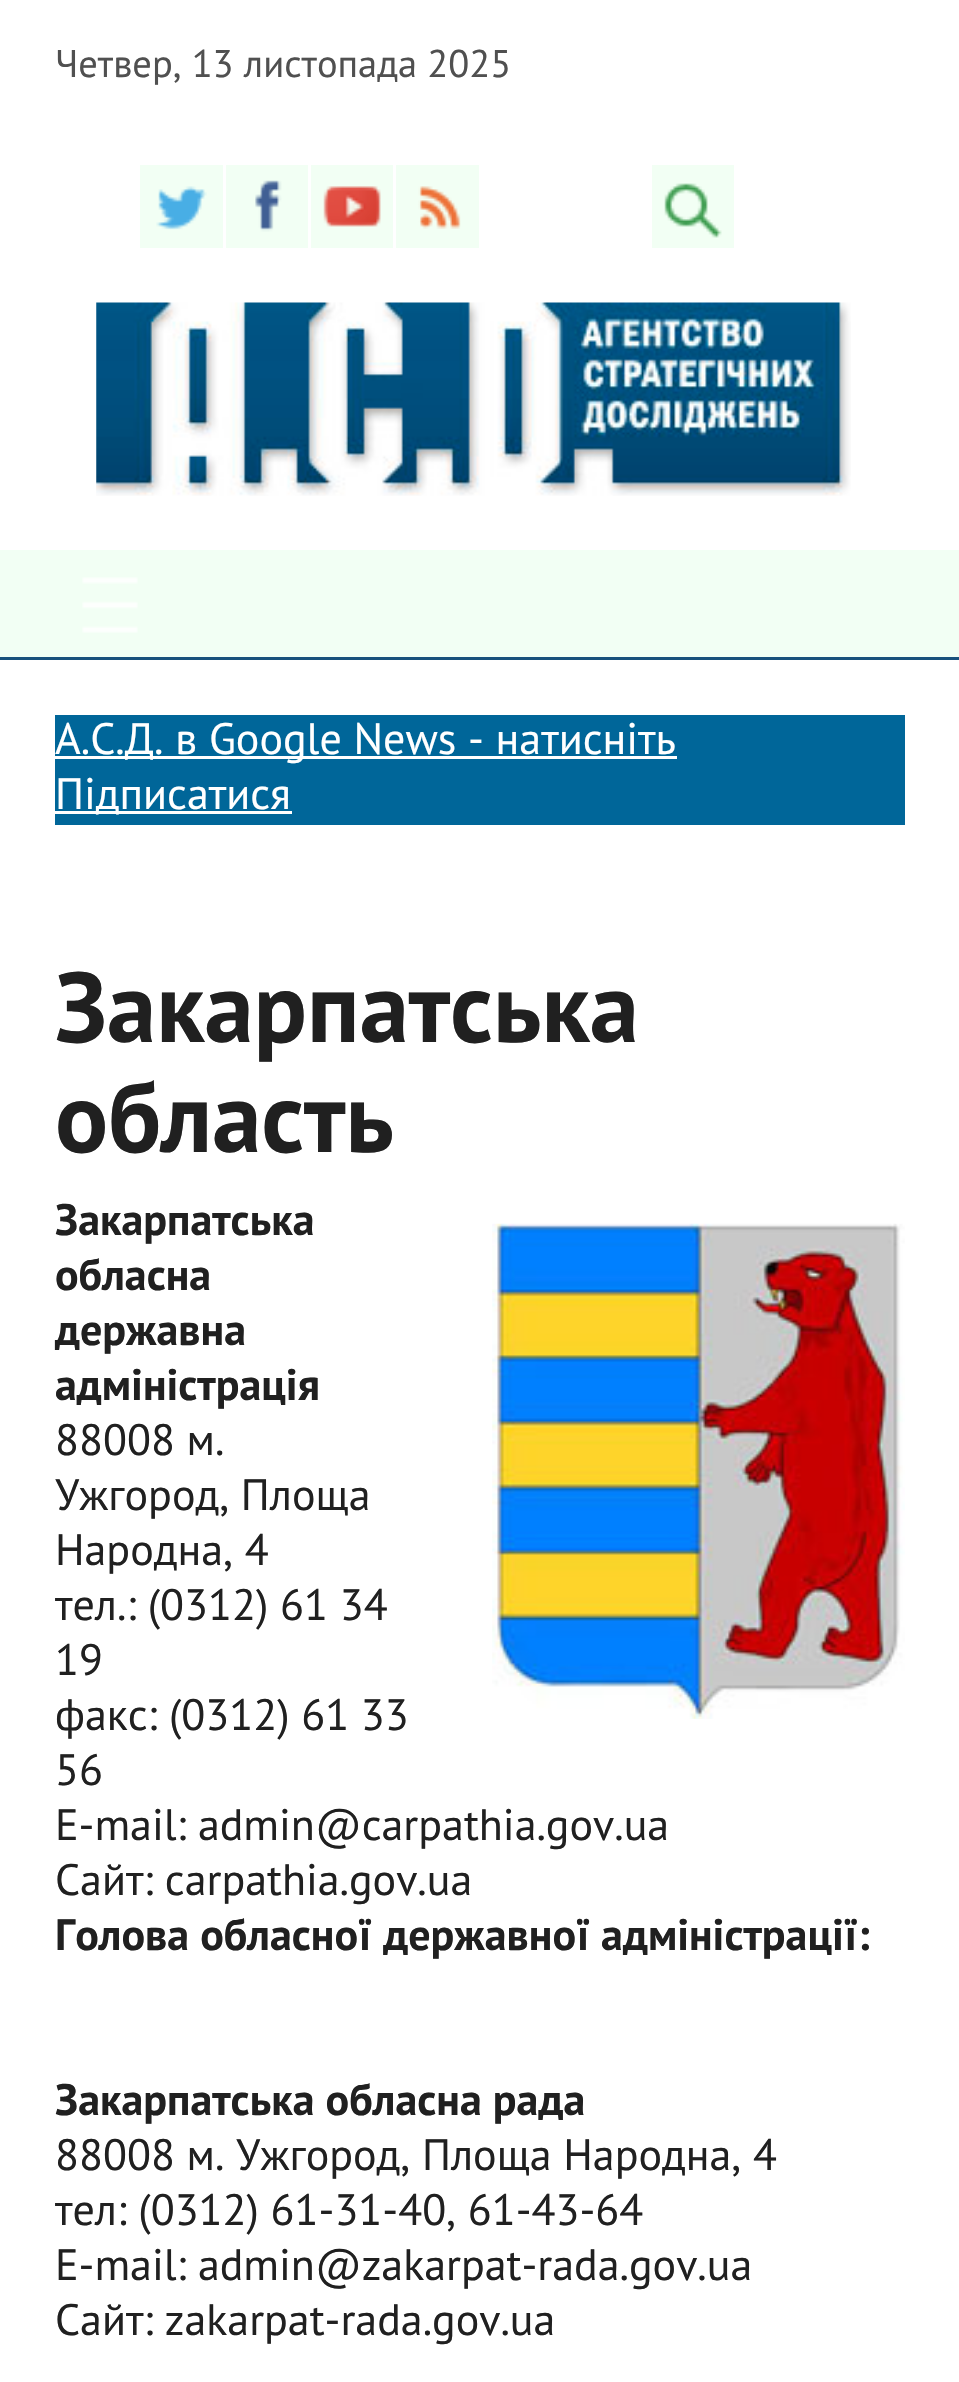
void draw(SkCanvas* c) {
SkPaint p;
p.setAntiAlias(true);
auto F=[&](const char* family, int weight, float size, bool italic = false){SkFontStyle style(weight, SkFontStyle::kNormal_Width,italic ? SkFontStyle::kItalic_Slant : SkFontStyle::kUpright_Slant);SkFont result(fontMgr->matchFamilyStyle(family, style), size);result.setSubpixel(true);return result;};
auto T=[&](const char* s, float x, float y, const SkFont& font){c->drawString(s, x, y, font, p);};
auto R=[&](float x, float y, float w, float h){c->drawRect(SkRect::MakeXYWH(x, y, w, h), p);};
auto I=[&](const char* path, float x, float y, float w, float h){auto image = SkImages::DeferredFromEncodedData(SkData::MakeFromFileName(path));c->drawImageRect(image, SkRect::MakeXYWH(x, y, w, h), SkSamplingOptions());};
c->clear(0xffffffff);
auto f1 = F("PT Sans",400,38.5);
p.setColor(0xff505050);
T("Четвер, 13 листопада 2025",55,77,f1);
p.setColor(0xfff2fff4);
R(140,165,83,83);
I("1.png",156,186,51,44);
R(226,165,82,83);
I("2.png",255,180,27,52);
R(311,165,82,83);
I("3.png",323,186,58,41);
R(396,165,83,83);
I("4.png",418,186,43,43);
R(652,165,82,83);
I("5.png",664,183,58,55);
I("6.png",96,302,755,194);
R(0,550,959,107);
p.setColor(0xff18517c);
R(0,657,959,3);
I("7.png",82,577,56,56);
p.setColor(0xff006699);
R(55,715,850,110);
p.setColor(0xffffffff);
R(55,756,622,3);
auto f2 = F("PT Sans",400,44);
T("А.С.Д. в Google News - натисніть",55,754,f2);
R(55,811,237,3);
T("Підписатися",55,809,f2);
auto f3 = F("PT Sans",700,99);
p.setColor(0xff202020);
T("Закарпатська",55,1042,f3);
T("область",55,1152,f3);
auto f4 = F("PT Sans",700,44);
T("Закарпатська",55,1235,f4);
I("8.png",492,1223,413,496);
T("обласна",55,1290,f4);
T("державна",55,1345,f4);
T("адміністрація",55,1400,f4);
T("88008 м.",55,1455,f2);
T("Ужгород, Площа",55,1510,f2);
T("Народна, 4",55,1565,f2);
T("тел.: (0312) 61 34",55,1620,f2);
T("19",55,1675,f2);
T("факс: (0312) 61 33",55,1730,f2);
T("56",55,1785,f2);
T("E-mail: admin@carpathia.gov.ua",55,1840,f2);
T("Сайт: carpathia.gov.ua",55,1895,f2);
T("Голова обласної державної адміністрації:",55,1950,f4);
T("Закарпатська обласна рада",55,2115,f4);
T("88008 м. Ужгород, Площа Народна, 4",55,2170,f2);
T("тел: (0312) 61-31-40, 61-43-64",55,2225,f2);
T("E-mail: admin@zakarpat-rada.gov.ua",55,2280,f2);
T("Сайт: zakarpat-rada.gov.ua",55,2335,f2);
}
